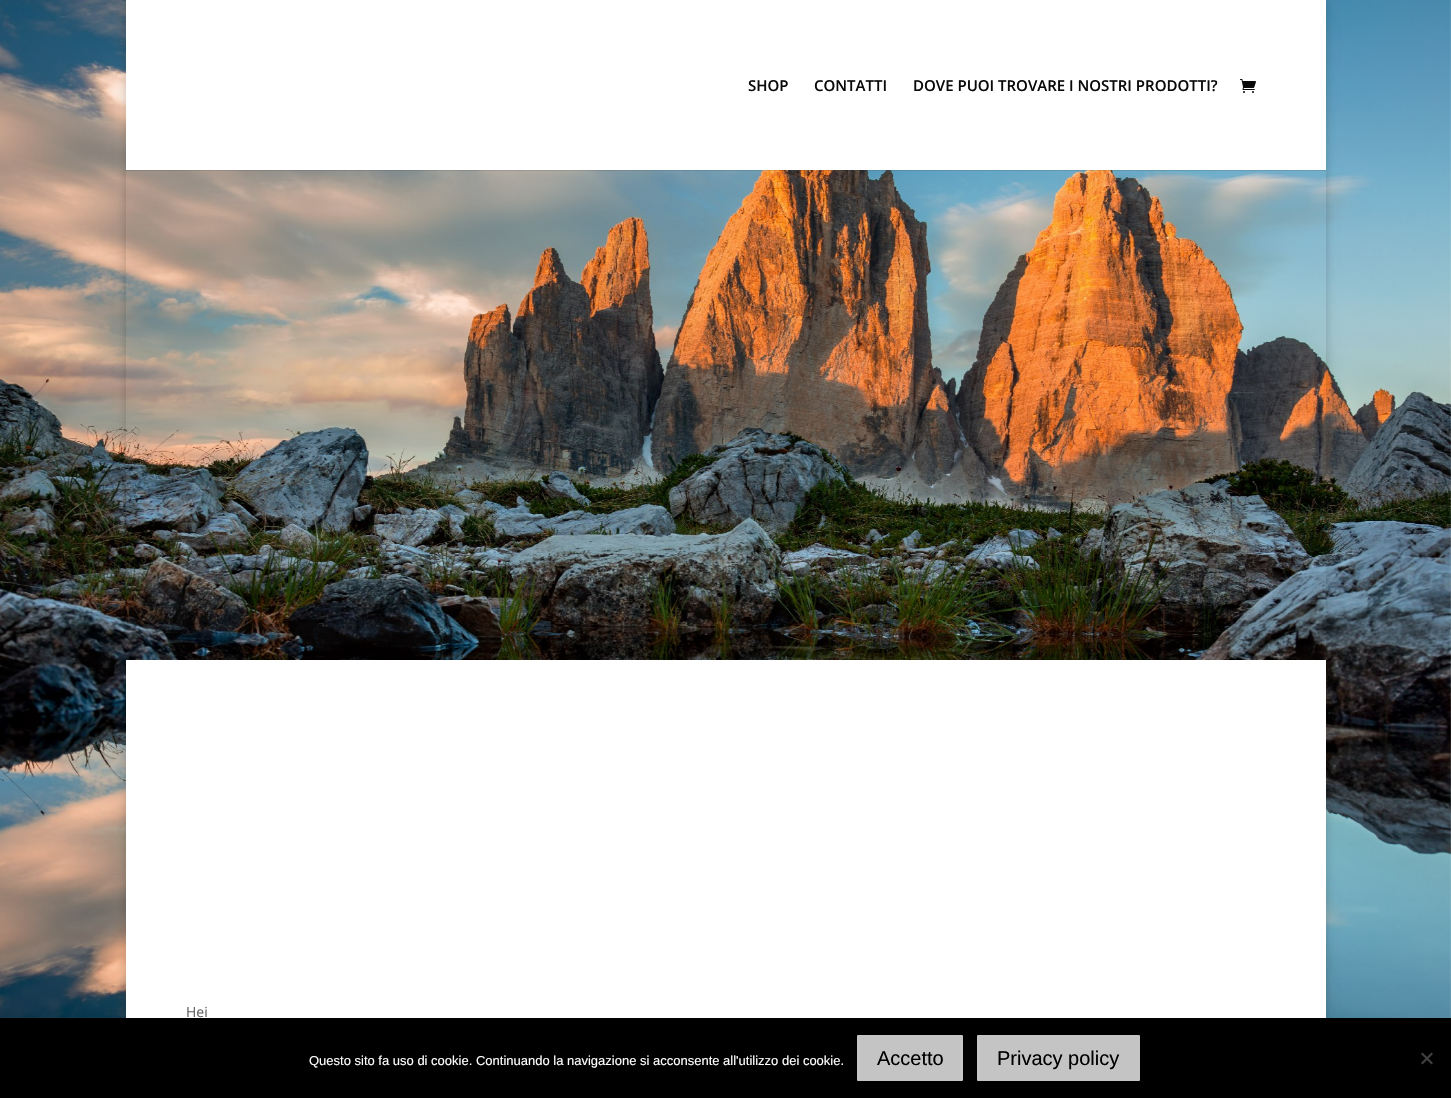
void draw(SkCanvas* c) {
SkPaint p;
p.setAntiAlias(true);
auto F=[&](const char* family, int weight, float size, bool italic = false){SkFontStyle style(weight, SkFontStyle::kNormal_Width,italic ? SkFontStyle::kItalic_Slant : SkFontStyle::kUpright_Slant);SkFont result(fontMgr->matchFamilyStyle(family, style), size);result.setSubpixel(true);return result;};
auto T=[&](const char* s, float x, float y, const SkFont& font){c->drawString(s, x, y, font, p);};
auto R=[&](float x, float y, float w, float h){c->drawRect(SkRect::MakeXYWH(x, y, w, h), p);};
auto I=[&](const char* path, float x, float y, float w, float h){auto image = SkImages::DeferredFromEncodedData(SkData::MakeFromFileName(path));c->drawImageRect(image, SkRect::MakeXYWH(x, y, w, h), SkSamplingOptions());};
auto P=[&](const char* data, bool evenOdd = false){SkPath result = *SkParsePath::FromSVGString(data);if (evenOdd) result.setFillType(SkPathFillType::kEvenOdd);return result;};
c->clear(0xffffffff);
I("1.png",0,0,1451,1018);
c->save();
c->clipPath(P("M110 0h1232v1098h-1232zm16 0h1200v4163h-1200z",true),true);
p.setColor(0x33000000);
p.setMaskFilter(SkMaskFilter::MakeBlur(kNormal_SkBlurStyle, 5));
c->drawRect(SkRect::MakeXYWH(126,0,1200,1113),p);
p.setMaskFilter(nullptr);
c->restore();
p.setColor(0x1a000000);
R(126,170,1200,1);
p.setColor(0xffffffff);
R(126,0,1200,170);
auto f1 = F("Open Sans",600,15);
p.setColor(0xff0a0a0a);
T("SHOP",748,91,f1);
T("CONTATTI",814,91,f1);
T("DOVE PUOI TROVARE I NOSTRI PRODOTTI?",913,91,f1);
I("2.png",1240,79,16,14);
p.setColor(0xffffffff);
R(126,660,1200,358);
auto f2 = F("Open Sans",400,14);
p.setColor(0xff666666);
T("Hei",186,1017,f2);
p.setColor(0xff000000);
R(0,1018,1451,80);
auto f3 = F("Liberation Sans",400,13);
p.setColor(0xffffffff);
T("Questo sito fa uso di cookie. Continuando la navigazione si acconsente all'utilizzo dei cookie.",309,1065,f3);
p.setColor(0xffc4c4c4);
c->drawRoundRect(SkRect::MakeXYWH(856,1034,108,48),2,2,p);
p.setStroke(true);
p.setStrokeWidth(2);
p.setColor(0xff000000);
c->drawRoundRect(SkRect::MakeXYWH(856,1034,108,48),2,2,p);
auto f4 = F("Liberation Sans",400,20);
p.setStroke(false);
T("Accetto",877,1065,f4);
p.setColor(0xffc4c4c4);
c->drawRoundRect(SkRect::MakeXYWH(976,1034,165,48),2,2,p);
p.setStroke(true);
p.setColor(0xff000000);
c->drawRoundRect(SkRect::MakeXYWH(976,1034,165,48),2,2,p);
p.setStroke(false);
T("Privacy policy",997,1065,f4);
p.setColor(0xff404040);
c->drawPath(P("M1431.5 1052.5l1.5 1.5l-10.5 10.5l-1.5-1.5z"),p);
c->drawPath(P("M1421 1054l1.5-1.5l10.5 10.5l-1.5 1.5z"),p);
}
